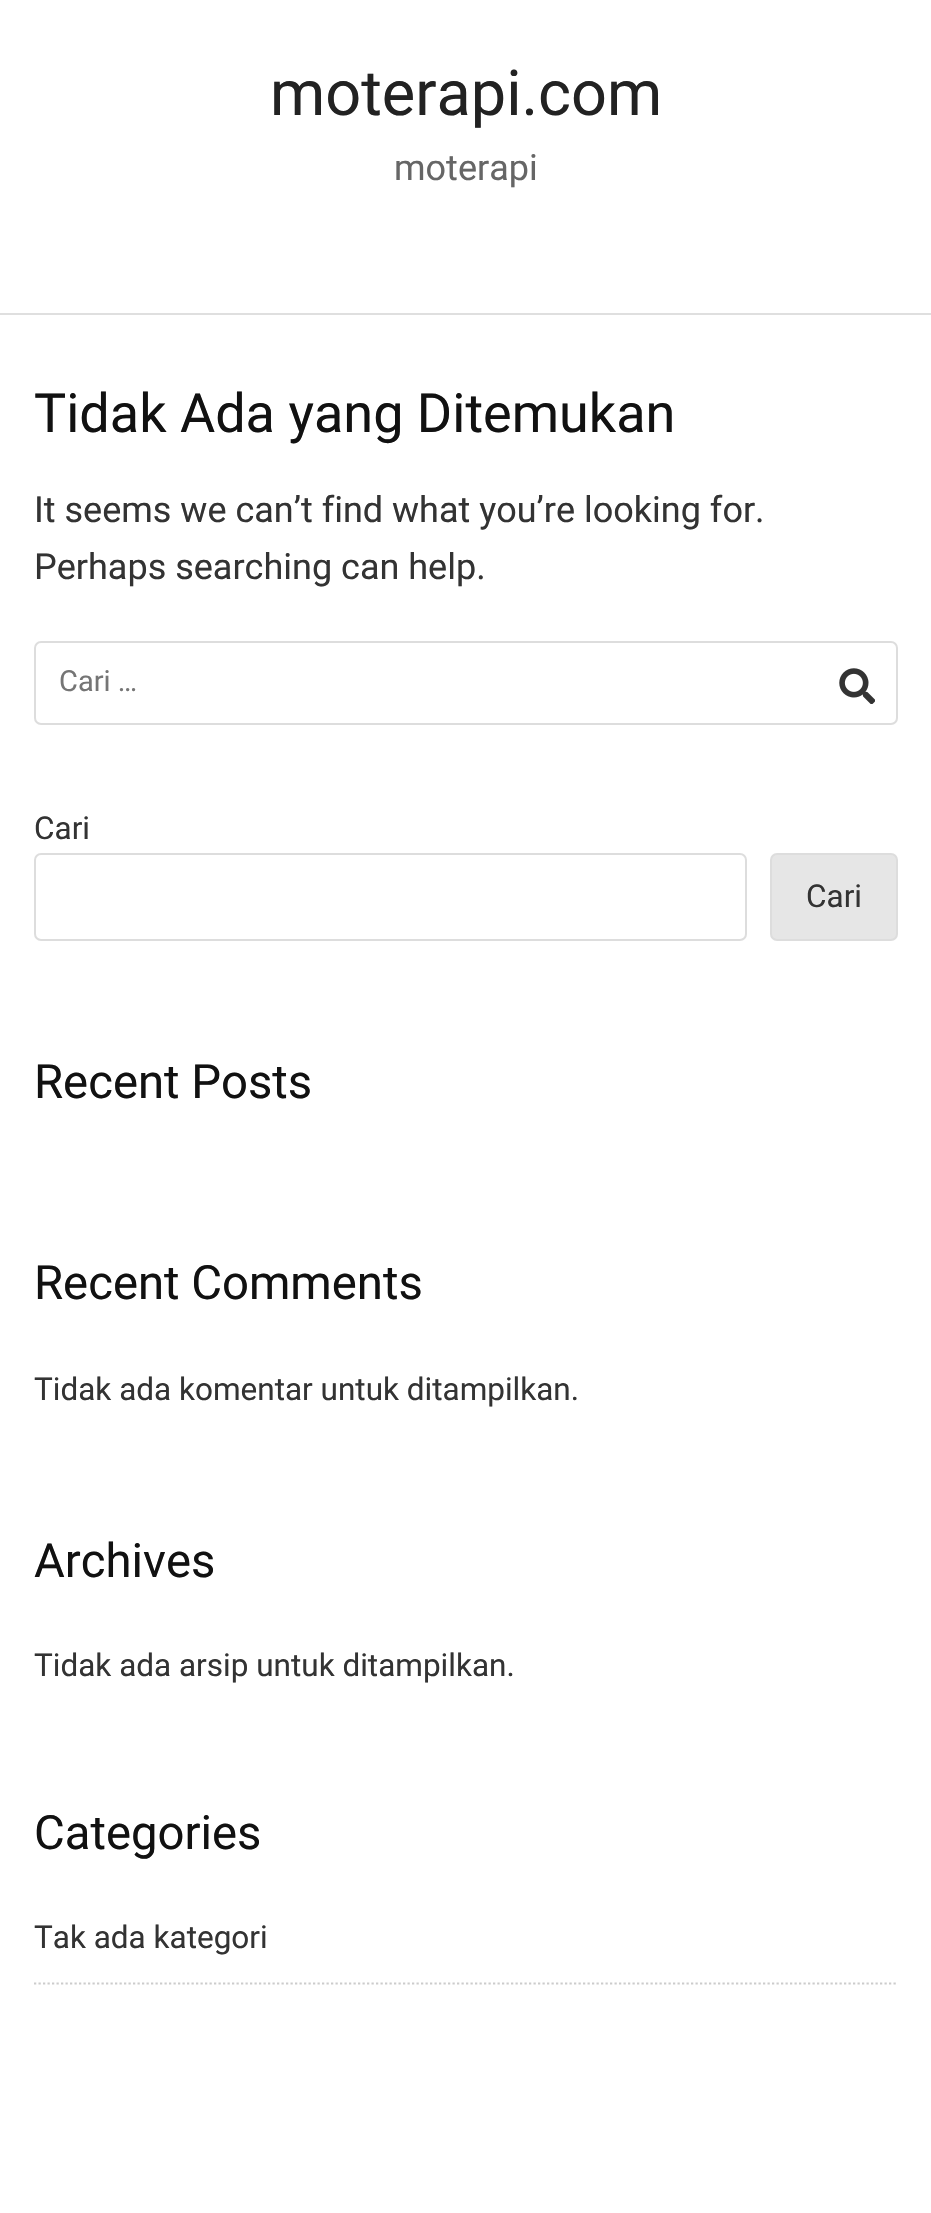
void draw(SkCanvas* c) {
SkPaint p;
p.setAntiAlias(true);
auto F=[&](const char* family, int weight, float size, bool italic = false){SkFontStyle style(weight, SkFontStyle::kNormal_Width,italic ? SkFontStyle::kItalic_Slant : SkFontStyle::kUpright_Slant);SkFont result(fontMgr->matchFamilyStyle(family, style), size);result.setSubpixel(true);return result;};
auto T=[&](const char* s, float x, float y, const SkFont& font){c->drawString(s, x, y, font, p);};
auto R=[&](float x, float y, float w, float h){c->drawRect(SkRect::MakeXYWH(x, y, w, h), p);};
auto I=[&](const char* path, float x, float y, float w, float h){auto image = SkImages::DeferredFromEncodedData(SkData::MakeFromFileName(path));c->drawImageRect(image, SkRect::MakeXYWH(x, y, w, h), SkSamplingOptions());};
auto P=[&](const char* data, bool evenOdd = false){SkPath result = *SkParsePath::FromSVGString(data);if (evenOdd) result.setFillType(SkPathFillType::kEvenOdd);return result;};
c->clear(0xffffffff);
p.setColor(0xffdfdfdf);
R(0,313,931,2);
auto f1 = F("Roboto",400,63);
p.setColor(0xff222222);
T("moterapi.com",270,115,f1);
auto f2 = F("Roboto",400,36);
p.setColor(0xff666666);
T("moterapi",394,180,f2);
auto f3 = F("Roboto",400,54);
p.setColor(0xff111111);
T("Tidak Ada yang Ditemukan",34,432,f3);
p.setColor(0xff333333);
T("It seems we can’t find what you’re looking for.",34,522,f2);
T("Perhaps searching can help.",34,579,f2);
p.setStroke(true);
p.setStrokeWidth(2);
p.setColor(0xffdddddd);
c->drawRoundRect(SkRect::MakeXYWH(35,642,862,82),6,6,p);
auto f4 = F("Roboto",400,29);
p.setStroke(false);
p.setColor(0xff757575);
T("Cari …",59,691,f4);
I("1.png",839,668,36,36);
auto f5 = F("Roboto",400,31.5);
p.setColor(0xff333333);
T("Cari",34,839,f5);
p.setStroke(true);
p.setColor(0xffdddddd);
c->drawRoundRect(SkRect::MakeXYWH(35,854,711,86),6,6,p);
p.setStroke(false);
p.setColor(0xffe6e6e6);
c->drawRoundRect(SkRect::MakeXYWH(771,854,126,86),6,6,p);
p.setStroke(true);
p.setColor(0xffdddddd);
c->drawRoundRect(SkRect::MakeXYWH(771,854,126,86),6,6,p);
p.setStroke(false);
p.setColor(0xff333333);
T("Cari",806,907,f5);
auto f6 = F("Roboto",400,47.25);
p.setColor(0xff111111);
T("Recent Posts",34,1098,f6);
T("Recent Comments",34,1299,f6);
p.setColor(0xff333333);
T("Tidak ada komentar untuk ditampilkan.",34,1400,f5);
p.setColor(0xff111111);
T("Archives",34,1577,f6);
p.setColor(0xff333333);
T("Tidak ada arsip untuk ditampilkan.",34,1676,f5);
p.setColor(0xff111111);
T("Categories",34,1849,f6);
p.setStroke(true);
p.setStrokeWidth(2.2);
p.setColor(0xffcccccc);
p.setPathEffect(SkDashPathEffect::Make({{2.25f,2.25f}}, 0));
c->drawPath(P("M34 1983.5h864"),p);
p.setPathEffect(nullptr);
p.setStroke(false);
p.setColor(0xff333333);
T("Tak ada kategori",34,1948,f5);
}
